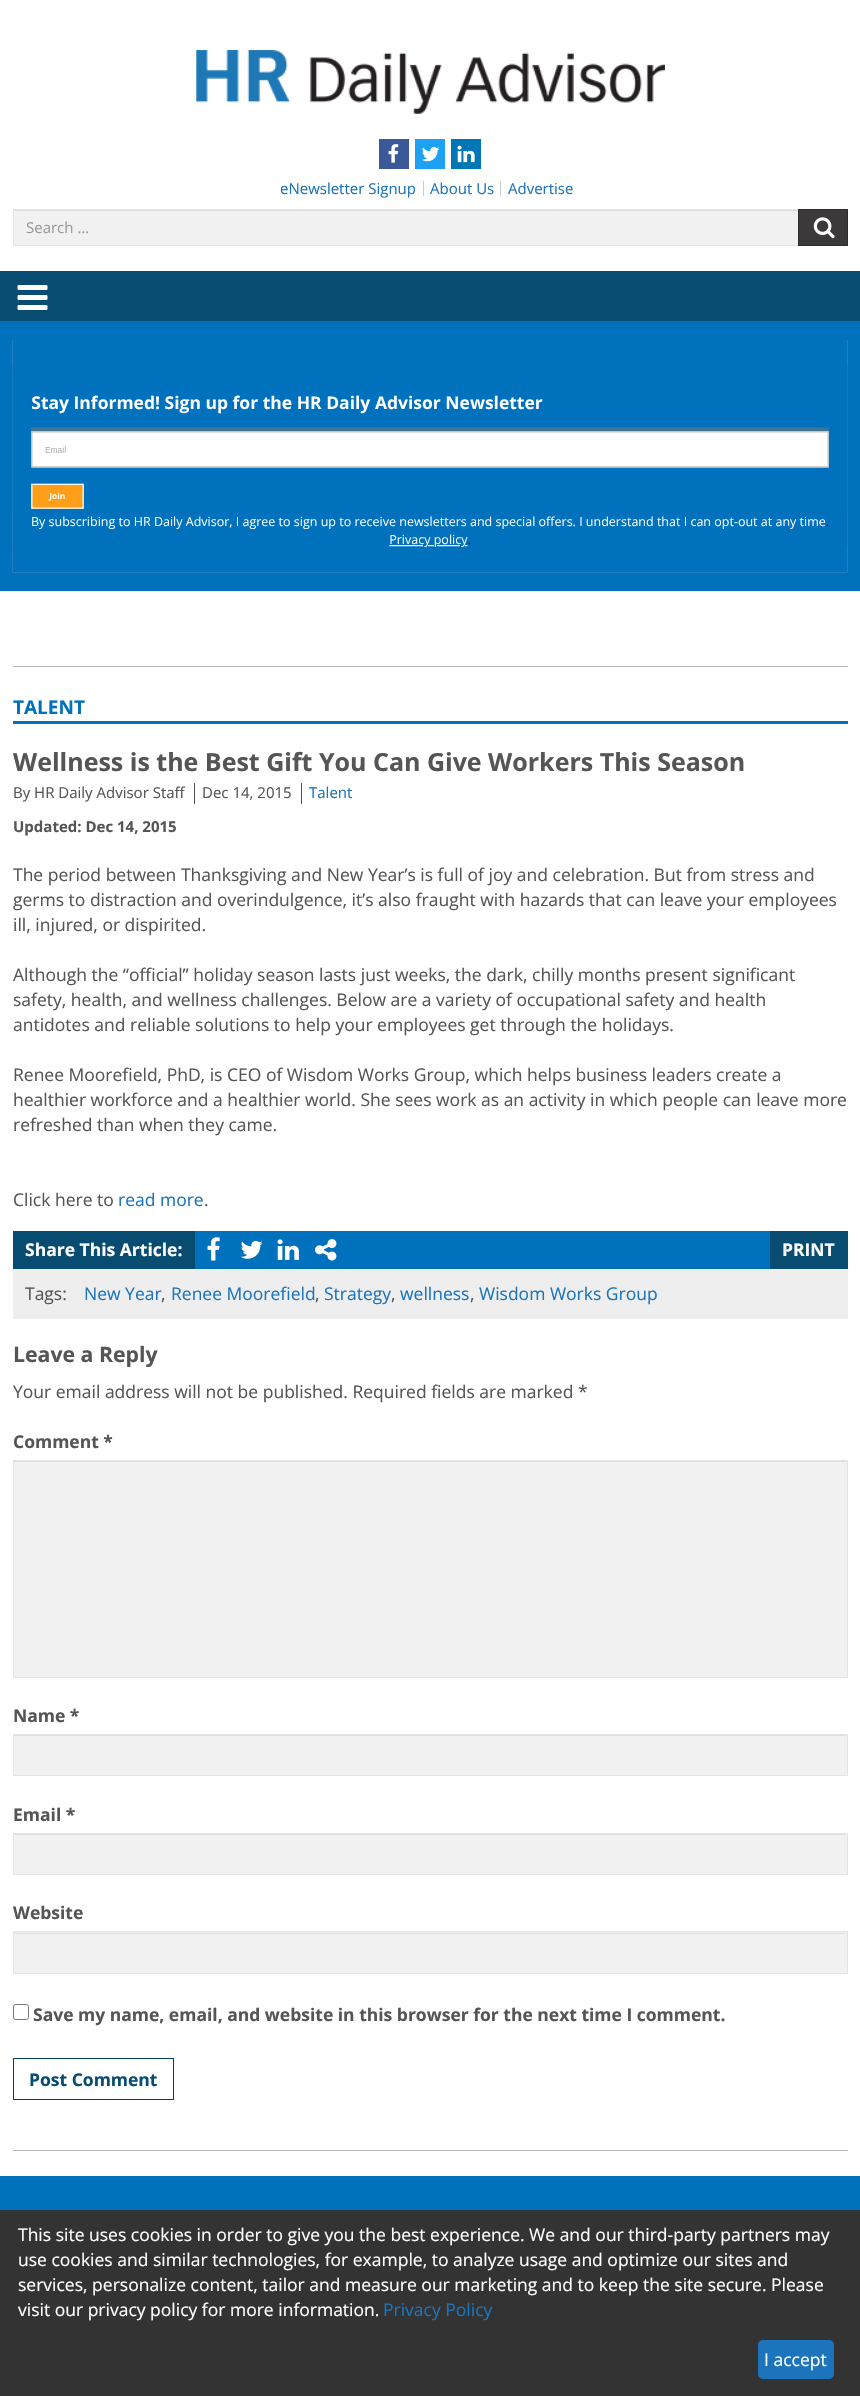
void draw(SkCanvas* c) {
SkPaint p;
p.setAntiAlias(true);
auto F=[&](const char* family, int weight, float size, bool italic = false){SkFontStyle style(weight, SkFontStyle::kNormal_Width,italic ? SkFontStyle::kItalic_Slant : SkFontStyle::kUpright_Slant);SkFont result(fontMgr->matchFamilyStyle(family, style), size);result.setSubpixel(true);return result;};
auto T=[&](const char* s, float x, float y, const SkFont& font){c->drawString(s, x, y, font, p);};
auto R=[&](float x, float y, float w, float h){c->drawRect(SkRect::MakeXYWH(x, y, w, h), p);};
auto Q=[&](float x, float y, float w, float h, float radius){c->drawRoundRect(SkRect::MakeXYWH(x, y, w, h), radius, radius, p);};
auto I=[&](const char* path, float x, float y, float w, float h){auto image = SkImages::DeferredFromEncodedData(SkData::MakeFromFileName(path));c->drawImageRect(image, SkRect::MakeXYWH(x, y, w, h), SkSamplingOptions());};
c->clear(0xffffffff);
I("1.png",196,50,469,64);
p.setColor(0xff3b5998);
R(379,139,30,30);
I("2.png",388,144,11,19);
p.setColor(0xff1da1f2);
R(415,139,30,30);
I("3.png",422,147,18,15);
p.setColor(0xff0077b5);
R(451,139,30,30);
I("4.png",457,145,18,18);
auto f1 = F("Open Sans",400,15);
p.setColor(0xff1c75bc);
T("eNewsletter Signup",280,194,f1);
p.setColor(0xffcccccc);
R(423,181,1,15);
p.setColor(0xff1c75bc);
T("About Us",430,194,f1);
p.setColor(0xffcccccc);
R(500,181,1,15);
p.setColor(0xff1c75bc);
T("Advertise",508,194,f1);
p.setColor(0xfff1f1f1);
R(14,211,784,34);
p.setColor(0xffdfdfdf);
R(14,210,784,1);
p.setStroke(true);
p.setStrokeWidth(1);
p.setColor(0xffe4e4e4);
c->drawRect(SkRect::MakeXYWH(13.5,209.5,834,36),p);
p.setStroke(false);
p.setColor(0xff999999);
T("Search …",26,233,f1);
p.setColor(0xff3b393a);
c->drawRect(SkRect::MakeXYWH(798.5,209.5,49,36),p);
p.setStroke(true);
p.setColor(0xff2e2c2d);
c->drawRect(SkRect::MakeXYWH(798.5,209.5,49,36),p);
I("5.png",813,217,22,22);
p.setStroke(false);
p.setColor(0xff094c72);
R(0,271,860,50);
I("6.png",17,285,31,25);
p.setColor(0xff0071bc);
R(0,321,860,270);
I("7.png",12,340,836,233);
p.setColor(0xffb8b8b8);
R(13,666,835,1);
p.setColor(0xff0071bc);
R(13,721,835,3);
auto f2 = F("Open Sans",700,19);
T("TALENT",13,714,f2);
auto f3 = F("Open Sans",700,25);
p.setColor(0xff555555);
T("Wellness is the Best Gift You Can Give Workers This Season",13,771,f3);
T("By HR Daily Advisor Staff",13,798,f1);
R(194,783,1,21);
T("Dec 14, 2015",202,798,f1);
R(301,783,1,21);
p.setColor(0xff1c75bc);
T("Talent",309,798,f1);
auto f4 = F("Open Sans",700,15);
p.setColor(0xff555555);
T("Updated: Dec 14, 2015",13,832,f4);
auto f5 = F("Open Sans",400,17.5);
T("The period between Thanksgiving and New Year’s is full of joy and celebration. But from stress and",13,881,f5);
T("germs to distraction and overindulgence, it’s also fraught with hazards that can leave your employees",13,906,f5);
T("ill, injured, or dispirited.",13,931,f5);
T("Although the “official” holiday season lasts just weeks, the dark, chilly months present significant",13,981,f5);
T("safety, health, and wellness challenges. Below are a variety of occupational safety and health",13,1006,f5);
T("antidotes and reliable solutions to help your employees get through the holidays.",13,1031,f5);
T("Renee Moorefield, PhD, is CEO of Wisdom Works Group, which helps business leaders create a",13,1081,f5);
T("healthier workforce and a healthier world. She sees work as an activity in which people can leave more",13,1106,f5);
T("refreshed than when they came.",13,1131,f5);
T("Click here to",13,1206,f5);
p.setColor(0xff1c75bc);
T("read more",118,1206,f5);
p.setColor(0xff555555);
T(".",204,1206,f5);
p.setColor(0xff0071bc);
R(195,1231,575,38);
p.setColor(0xff094c72);
R(13,1231,182,38);
auto f6 = F("Open Sans",700,17.5);
p.setColor(0xffffffff);
T("Share This Article:",25,1256,f6);
I("8.png",207,1237,13,24);
I("9.png",240,1240,23,19);
I("10.png",277,1239,22,21);
I("11.png",315,1239,22,22);
p.setColor(0xff094c72);
R(770,1231,78,38);
p.setColor(0xffffffff);
T("PRINT",782,1256,f6);
p.setColor(0xffeeeeee);
R(13,1269,835,50);
p.setColor(0xff555555);
T("Tags:",25,1300,f5);
p.setColor(0xff1c75bc);
T("New Year",84,1300,f5);
p.setColor(0xff555555);
T(",",161,1300,f5);
p.setColor(0xff1c75bc);
T("Renee Moorefield",171,1300,f5);
p.setColor(0xff555555);
T(",",315,1300,f5);
p.setColor(0xff1c75bc);
T("Strategy",324,1300,f5);
p.setColor(0xff555555);
T(",",391,1300,f5);
p.setColor(0xff1c75bc);
T("wellness",400,1300,f5);
p.setColor(0xff555555);
T(",",470,1300,f5);
p.setColor(0xff1c75bc);
T("Wisdom Works Group",479,1300,f5);
auto f7 = F("Open Sans",700,21.25);
p.setColor(0xff555555);
T("Leave a Reply",13,1362,f7);
T("Your email address will not be published. Required fields are marked *",13,1398,f5);
T("Comment *",13,1448,f6);
p.setColor(0xfff1f1f1);
R(14,1461,833,216);
p.setColor(0xffdfdfdf);
R(14,1461,832,1);
p.setStroke(true);
p.setColor(0xffe4e4e4);
c->drawRect(SkRect::MakeXYWH(13.5,1460.5,834,217),p);
p.setStroke(false);
p.setColor(0xff555555);
T("Name *",13,1722,f6);
p.setColor(0xfff1f1f1);
R(14,1735,833,40);
p.setColor(0xffdfdfdf);
R(14,1735,832,1);
p.setStroke(true);
p.setColor(0xffe4e4e4);
c->drawRect(SkRect::MakeXYWH(13.5,1734.5,834,41),p);
p.setStroke(false);
p.setColor(0xff555555);
T("Email *",13,1821,f6);
p.setColor(0xfff1f1f1);
R(14,1834,833,40);
p.setColor(0xffdfdfdf);
R(14,1834,832,1);
p.setStroke(true);
p.setColor(0xffe4e4e4);
c->drawRect(SkRect::MakeXYWH(13.5,1833.5,834,41),p);
p.setStroke(false);
p.setColor(0xff555555);
T("Website",13,1919,f6);
p.setColor(0xfff1f1f1);
R(14,1932,833,41);
p.setColor(0xffdfdfdf);
R(14,1933,832,1);
p.setStroke(true);
p.setColor(0xffe4e4e4);
c->drawRect(SkRect::MakeXYWH(13.5,1931.5,834,42),p);
p.setColor(0xff767676);
c->drawRoundRect(SkRect::MakeXYWH(13.5,2004.5,15,15),2,2,p);
p.setStroke(false);
p.setColor(0xff555555);
T("Save my name, email, and website in this browser for the next time I comment.",33,2021,f6);
p.setStroke(true);
p.setColor(0xff073c5a);
c->drawRect(SkRect::MakeXYWH(13.5,2058.5,160,41),p);
p.setStroke(false);
p.setColor(0xff094c72);
T("Post Comment",29,2086,f6);
p.setColor(0xffb8b8b8);
R(13,2150,835,1);
p.setColor(0xff0071bc);
R(0,2176,860,34);
p.setColor(0xff333333);
R(0,2210,860,186);
p.setColor(0xffffffff);
T("This site uses cookies in order to give you the best experience. We and our third-party partners may",18,2241,f5);
T("use cookies and similar technologies, for example, to analyze usage and optimize our sites and",18,2266,f5);
T("services, personalize content, tailor and measure our marketing and to keep the site secure. Please",18,2291,f5);
T("visit our privacy policy for more information.",18,2316,f5);
p.setColor(0xff1c75bc);
T("Privacy Policy",383,2316,f5);
Q(758,2340,76,39,5);
p.setColor(0xffffffff);
T("I accept",764,2366,f5);
}
